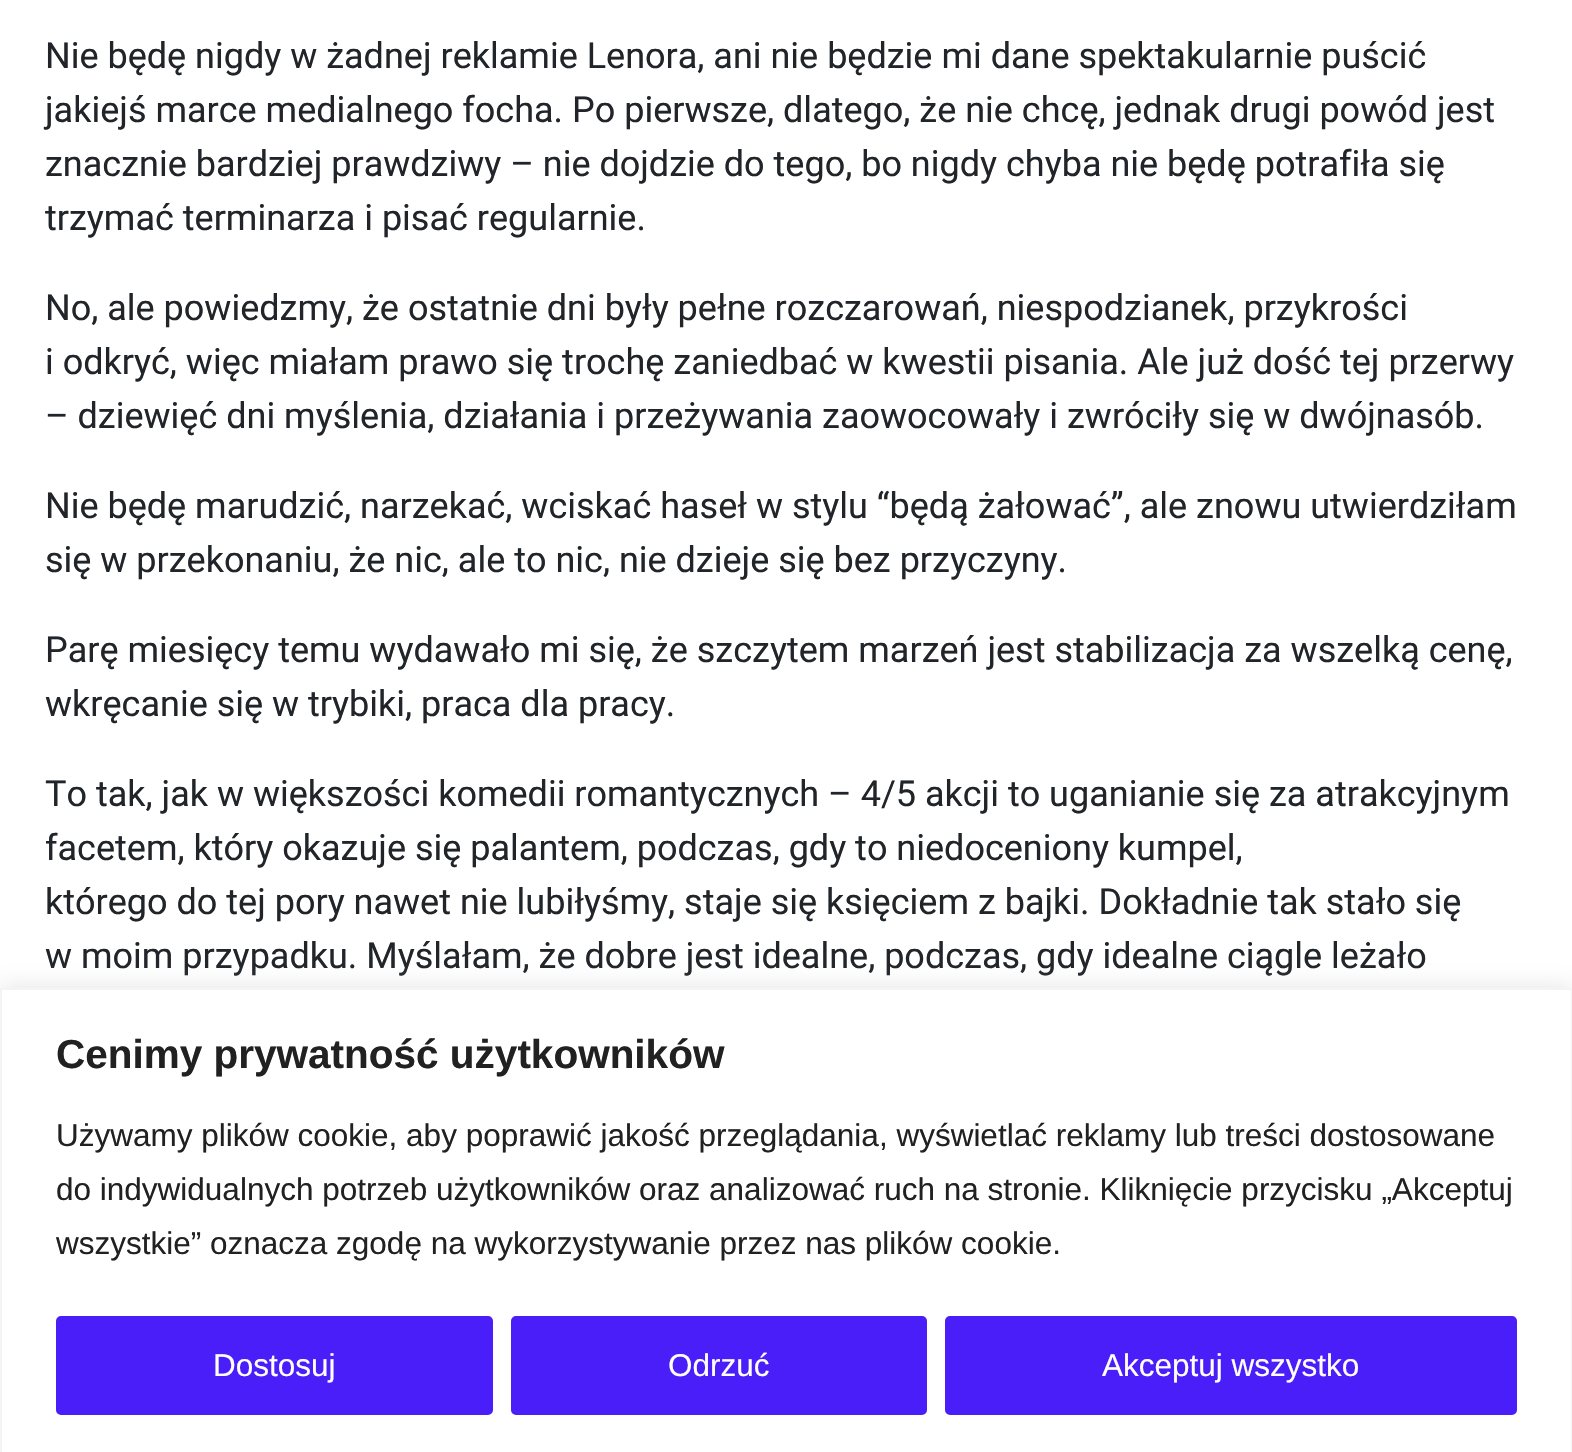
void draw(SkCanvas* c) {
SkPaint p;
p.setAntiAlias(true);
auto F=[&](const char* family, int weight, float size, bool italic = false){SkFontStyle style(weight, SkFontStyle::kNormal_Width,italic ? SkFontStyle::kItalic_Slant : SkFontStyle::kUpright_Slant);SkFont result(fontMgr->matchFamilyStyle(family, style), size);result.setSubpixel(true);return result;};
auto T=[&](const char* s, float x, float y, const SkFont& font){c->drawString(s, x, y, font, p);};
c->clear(0xffffffff);
auto f1 = F("Roboto",400,36);
p.setColor(0xff212529);
T("Nie będę nigdy w żadnej reklamie Lenora, ani nie będzie mi dane spektakularnie puścić",45,68,f1);
T("jakiejś marce medialnego focha. Po pierwsze, dlatego, że nie chcę, jednak drugi powód jest",45,122,f1);
T("znacznie bardziej prawdziwy – nie dojdzie do tego, bo nigdy chyba nie będę potrafiła się",45,176,f1);
T("trzymać terminarza i pisać regularnie.",45,230,f1);
T("No, ale powiedzmy, że ostatnie dni były pełne rozczarowań, niespodzianek, przykrości",45,320,f1);
T("i odkryć, więc miałam prawo się trochę zaniedbać w kwestii pisania. Ale już dość tej przerwy",45,374,f1);
T("– dziewięć dni myślenia, działania i przeżywania zaowocowały i zwróciły się w dwójnasób.",45,428,f1);
T("Nie będę marudzić, narzekać, wciskać haseł w stylu “będą żałować”, ale znowu utwierdziłam",45,518,f1);
T("się w przekonaniu, że nic, ale to nic, nie dzieje się bez przyczyny.",45,572,f1);
T("Parę miesięcy temu wydawało mi się, że szczytem marzeń jest stabilizacja za wszelką cenę,",45,662,f1);
T("wkręcanie się w trybiki, praca dla pracy.",45,716,f1);
T("To tak, jak w większości komedii romantycznych – 4/5 akcji to uganianie się za atrakcyjnym",45,806,f1);
T("facetem, który okazuje się palantem, podczas, gdy to niedoceniony kumpel,",45,860,f1);
T("którego do tej pory nawet nie lubiłyśmy, staje się księciem z bajki. Dokładnie tak stało się",45,914,f1);
T("w moim przypadku. Myślałam, że dobre jest idealne, podczas, gdy idealne ciągle leżało",45,968,f1);
p.setColor(0x4dacabab);
p.setMaskFilter(SkMaskFilter::MakeBlur(kNormal_SkBlurStyle, 11));
c->drawRect(SkRect::MakeXYWH(0,986,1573,465),p);
p.setMaskFilter(nullptr);
p.setColor(0xffffffff);
c->drawRect(SkRect::MakeXYWH(1,989,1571,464),p);
p.setStroke(true);
p.setStrokeWidth(2);
p.setColor(0xfff4f4f4);
c->drawRect(SkRect::MakeXYWH(1,989,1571,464),p);
auto f2 = F("Liberation Sans",700,40.5);
p.setStroke(false);
p.setColor(0xff212121);
T("Cenimy prywatność użytkowników",56,1068,f2);
auto f3 = F("Liberation Sans",400,31.5);
T("Używamy plików cookie, aby poprawić jakość przeglądania, wyświetlać reklamy lub treści dostosowane",56,1146,f3);
T("do indywidualnych potrzeb użytkowników oraz analizować ruch na stronie. Kliknięcie przycisku „Akceptuj",56,1200,f3);
T("wszystkie” oznacza zgodę na wykorzystywanie przez nas plików cookie.",56,1254,f3);
p.setColor(0xff491ef9);
c->drawRoundRect(SkRect::MakeXYWH(58.5,1318.5,432,94),2.5,2.5,p);
p.setStroke(true);
p.setStrokeWidth(5);
c->drawRoundRect(SkRect::MakeXYWH(58.5,1318.5,432,94),2.5,2.5,p);
p.setStroke(false);
p.setColor(0xffffffff);
T("Dostosuj",213,1376,f3);
p.setColor(0xff491ef9);
c->drawRoundRect(SkRect::MakeXYWH(513.5,1318.5,411,94),2.5,2.5,p);
p.setStroke(true);
c->drawRoundRect(SkRect::MakeXYWH(513.5,1318.5,411,94),2.5,2.5,p);
p.setStroke(false);
p.setColor(0xffffffff);
T("Odrzuć",668,1376,f3);
p.setColor(0xff491ef9);
c->drawRoundRect(SkRect::MakeXYWH(947.5,1318.5,567,94),2.5,2.5,p);
p.setStroke(true);
c->drawRoundRect(SkRect::MakeXYWH(947.5,1318.5,567,94),2.5,2.5,p);
p.setStroke(false);
p.setColor(0xffffffff);
T("Akceptuj wszystko",1102,1376,f3);
}
